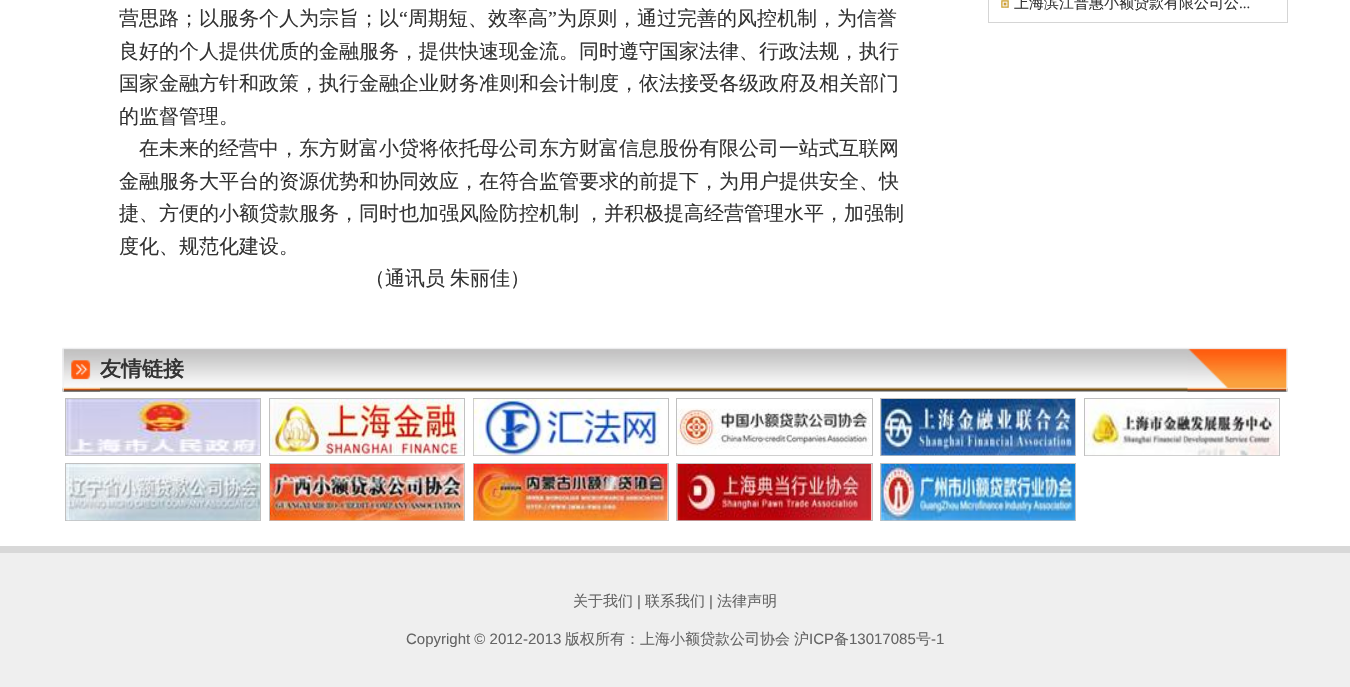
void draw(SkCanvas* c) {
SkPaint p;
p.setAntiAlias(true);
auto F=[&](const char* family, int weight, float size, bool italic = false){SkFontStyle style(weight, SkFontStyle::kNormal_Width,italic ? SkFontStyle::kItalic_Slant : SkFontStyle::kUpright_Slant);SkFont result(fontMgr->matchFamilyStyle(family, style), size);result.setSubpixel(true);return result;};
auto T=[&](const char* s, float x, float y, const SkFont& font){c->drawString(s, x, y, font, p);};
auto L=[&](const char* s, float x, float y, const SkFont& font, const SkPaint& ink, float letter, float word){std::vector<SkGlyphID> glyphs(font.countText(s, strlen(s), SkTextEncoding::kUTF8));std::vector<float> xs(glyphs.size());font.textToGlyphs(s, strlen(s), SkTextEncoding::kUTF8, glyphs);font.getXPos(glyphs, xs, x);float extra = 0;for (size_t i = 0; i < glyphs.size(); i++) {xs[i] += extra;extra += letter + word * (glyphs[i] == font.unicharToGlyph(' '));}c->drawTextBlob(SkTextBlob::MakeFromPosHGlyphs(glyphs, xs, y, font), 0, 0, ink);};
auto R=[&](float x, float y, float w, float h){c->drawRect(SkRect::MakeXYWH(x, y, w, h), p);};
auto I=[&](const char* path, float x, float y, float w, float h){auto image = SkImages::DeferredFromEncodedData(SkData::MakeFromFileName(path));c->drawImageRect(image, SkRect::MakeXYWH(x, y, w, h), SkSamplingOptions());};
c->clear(0xffffffff);
p.setStroke(true);
p.setStrokeWidth(1);
p.setColor(0xffd5d5d5);
c->drawRect(SkRect::MakeXYWH(988.5,-.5,299,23),p);
I("1.png",1001,0,8,8);
auto f1 = F("WenQuanYi Zen Hei",500,15);
p.setStroke(false);
p.setColor(0xff333333);
T("上海滨江普惠小额贷款有限公司公",1014,8,f1);
auto f2 = F("Liberation Serif",400,15);
T("...",1239,8,f2);
auto f3 = F("WenQuanYi Zen Hei",500,20);
T("营思路；以服务个人为宗旨；以",119,25,f3);
auto f4 = F("Liberation Serif",400,20);
T("“",399,25,f4);
T("周期短、效率高",408,25,f3);
T("”",548,25,f4);
T("为原则，通过完善的风控机制，为信誉",557,25,f3);
T("良好的个人提供优质的金融服务，提供快速现金流。同时遵守国家法律、行政法规，执行",119,58,f3);
T("国家金融方针和政策，执行金融企业财务准则和会计制度，依法接受各级政府及相关部门",119,90,f3);
T("的监督管理。",119,123,f3);
T("在未来的经营中，东方财富小贷将依托母公司东方财富信息股份有限公司一站式互联网",139,155,f3);
T("金融服务大平台的资源优势和协同效应，在符合监管要求的前提下，为用户提供安全、快",119,188,f3);
L("捷、方便的小额贷款服务，同时也加强风险防控机制 ，并积极提高经营管理水平，加强制",119,220,f3,p,0,-1);
T("度化、规范化建设。",119,253,f3);
L("（通讯员 朱丽佳）",365,285,f3,p,0,-1);
I("2.png",62,347,1226,45);
I("3.png",62,348,38,44);
auto f5 = F("WenQuanYi Zen Hei",700,21);
T("友情链接",100,376,f5);
I("4.png",1187,348,101,44);
p.setStroke(true);
p.setColor(0xffc0c0c0);
c->drawRect(SkRect::MakeXYWH(65.5,398.5,195,57),p);
I("5.png",66,399,194,57);
c->drawRect(SkRect::MakeXYWH(269.5,398.5,195,57),p);
I("6.png",270,399,194,57);
c->drawRect(SkRect::MakeXYWH(473.5,398.5,195,57),p);
I("7.png",473,399,195,57);
c->drawRect(SkRect::MakeXYWH(676.5,398.5,196,57),p);
I("8.png",677,408,194,48);
c->drawRect(SkRect::MakeXYWH(880.5,398.5,195,57),p);
I("9.png",881,399,194,57);
c->drawRect(SkRect::MakeXYWH(1084.5,398.5,195,57),p);
I("10.png",1085,399,194,57);
c->drawRect(SkRect::MakeXYWH(65.5,463.5,195,57),p);
I("11.png",66,464,194,57);
c->drawRect(SkRect::MakeXYWH(269.5,463.5,195,57),p);
I("12.png",270,464,194,57);
c->drawRect(SkRect::MakeXYWH(473.5,463.5,195,57),p);
I("13.png",473,464,195,57);
c->drawRect(SkRect::MakeXYWH(676.5,463.5,196,57),p);
I("14.png",677,464,195,57);
c->drawRect(SkRect::MakeXYWH(880.5,463.5,195,57),p);
I("15.png",881,464,194,57);
p.setStroke(false);
p.setColor(0xffefefef);
R(0,553,1350,134);
p.setColor(0xffd8d8d8);
R(0,546,1350,7);
p.setColor(0xff656565);
T("关于我们",573,606,f1);
auto f6 = F("Liberation Sans",400,15);
T("|",637,606,f6);
T("联系我们",645,606,f1);
T("|",709,606,f6);
T("法律声明",717,606,f1);
T("Copyright © 2012-2013",406,644,f6);
T("版权所有：上海小额贷款公司协会",565,644,f1);
T("沪",794,644,f1);
T("ICP",809,644,f6);
T("备",834,644,f1);
T("13017085",849,644,f6);
T("号",916,644,f1);
T("-1",931,644,f6);
}
